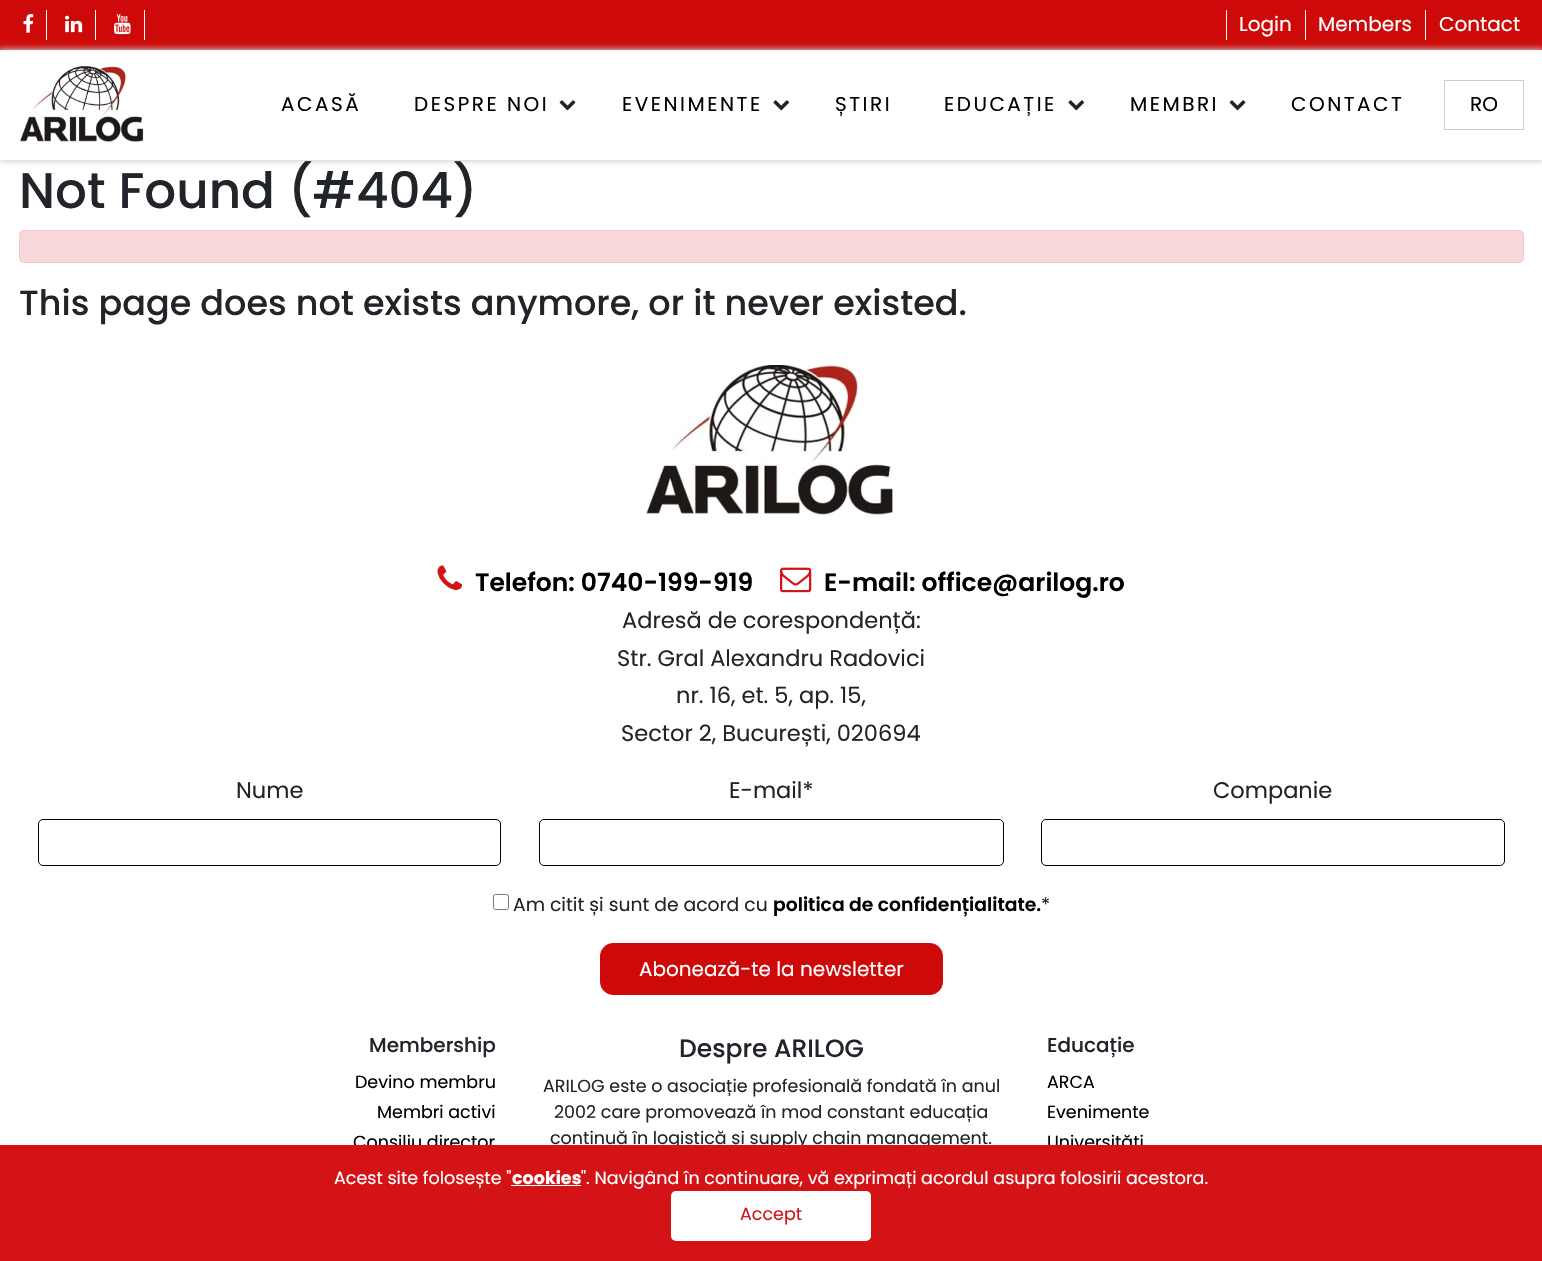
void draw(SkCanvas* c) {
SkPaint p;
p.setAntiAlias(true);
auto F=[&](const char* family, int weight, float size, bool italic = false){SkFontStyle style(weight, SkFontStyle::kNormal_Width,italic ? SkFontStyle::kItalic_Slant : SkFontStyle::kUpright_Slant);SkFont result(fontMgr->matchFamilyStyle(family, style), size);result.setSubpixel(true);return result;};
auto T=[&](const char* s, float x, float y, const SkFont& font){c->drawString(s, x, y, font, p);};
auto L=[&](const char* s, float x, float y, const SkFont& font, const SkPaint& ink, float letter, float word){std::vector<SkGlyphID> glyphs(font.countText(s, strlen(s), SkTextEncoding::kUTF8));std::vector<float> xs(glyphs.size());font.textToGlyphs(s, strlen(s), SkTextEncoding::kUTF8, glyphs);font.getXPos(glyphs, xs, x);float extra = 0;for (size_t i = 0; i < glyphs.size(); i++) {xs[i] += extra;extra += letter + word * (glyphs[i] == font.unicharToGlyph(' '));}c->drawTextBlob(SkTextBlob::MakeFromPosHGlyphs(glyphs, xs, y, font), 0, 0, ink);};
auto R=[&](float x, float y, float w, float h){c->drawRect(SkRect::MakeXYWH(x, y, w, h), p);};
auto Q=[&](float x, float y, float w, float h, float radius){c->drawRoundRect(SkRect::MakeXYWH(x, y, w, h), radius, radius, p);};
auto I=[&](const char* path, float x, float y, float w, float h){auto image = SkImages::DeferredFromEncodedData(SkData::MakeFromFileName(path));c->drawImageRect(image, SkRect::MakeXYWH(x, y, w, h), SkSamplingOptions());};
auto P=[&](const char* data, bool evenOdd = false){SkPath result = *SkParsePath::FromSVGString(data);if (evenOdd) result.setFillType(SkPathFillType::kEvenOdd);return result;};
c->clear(0xffffffff);
p.setColor(0xffce0909);
R(0,0,1542,50);
p.setColor(0xffffffff);
R(46,10,1,30);
I("1.png",23,14,11,19);
R(95,10,1,30);
I("2.png",65,15,18,18);
R(144,10,1,30);
I("3.png",114,14,17,21);
R(1226,10,1,30);
auto f1 = F("Poppins",400,20);
T("Login",1239,31,f1);
R(1305,10,1,30);
T("Members",1318,31,f1);
R(1425,10,1,30);
T("Contact",1439,31,f1);
c->save();
c->clipPath(P("M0 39h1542v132h-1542zm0 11h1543v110h-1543z",true),true);
p.setColor(0xffcccccc);
p.setMaskFilter(SkMaskFilter::MakeBlur(kNormal_SkBlurStyle, 3));
c->drawRect(SkRect::MakeXYWH(-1,49,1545,112),p);
p.setMaskFilter(nullptr);
c->restore();
I("4.png",20,66,124,77);
p.setColor(0xff000000);
L("ACASĂ",281,111,f1,p,2.5,0);
L("DESPRE NOI",414,111,f1,p,2.5,0);
I("5.png",559,100,17,11);
L("EVENIMENTE",622,111,f1,p,2.5,0);
I("6.png",773,100,17,11);
L("ȘTIRI",835,111,f1,p,2.5,0);
L("EDUCAȚIE",944,111,f1,p,2.5,0);
I("6.png",1068,100,17,11);
L("MEMBRI",1130,111,f1,p,2.5,0);
I("5.png",1229,100,17,11);
L("CONTACT",1291,111,f1,p,2.5,0);
p.setStroke(true);
p.setStrokeWidth(1);
p.setColor(0xffcccccc);
c->drawRect(SkRect::MakeXYWH(1444.5,80.5,79,49),p);
p.setStroke(false);
p.setColor(0xff000000);
T("RO",1470,111,f1);
auto f2 = F("Poppins",500,50);
p.setColor(0xff212529);
T("Not Found (#404)",19,208,f2);
p.setColor(0xfff8d7da);
c->drawRoundRect(SkRect::MakeXYWH(19.5,230.5,1504,32),4.5,4.5,p);
p.setStroke(true);
p.setColor(0xfff5c6cb);
c->drawRoundRect(SkRect::MakeXYWH(19.5,230.5,1504,32),4.5,4.5,p);
auto f3 = F("Poppins",500,35);
p.setStroke(false);
p.setColor(0xff212529);
T("This page does not exists anymore, or it never existed.",19,315,f3);
I("7.png",646,365,247,154);
I("8.png",437,565,25,25);
auto f4 = F("Poppins",600,25);
p.setColor(0xff000000);
T("Telefon: 0740-199-919",475,591,f4);
I("9.png",780,567,32,26);
T("E-mail: office@arilog.ro",824,591,f4);
auto f5 = F("Poppins",400,22.5);
p.setColor(0xff212529);
T("Adresă de corespondență:",622,628,f5);
T("Str. Gral Alexandru Radovici",617,666,f5);
T("nr. 16, et. 5, ap. 15,",676,703,f5);
T("Sector 2, București, 020694",621,741,f5);
T("Nume",236,798,f5);
p.setStroke(true);
p.setColor(0xff000000);
c->drawRoundRect(SkRect::MakeXYWH(38.5,819.5,462,46),4.5,4.5,p);
p.setStroke(false);
p.setColor(0xff212529);
T("E-mail*",729,798,f5);
p.setStroke(true);
p.setColor(0xff000000);
c->drawRoundRect(SkRect::MakeXYWH(539.5,819.5,464,46),4.5,4.5,p);
p.setStroke(false);
p.setColor(0xff212529);
T("Companie",1213,798,f5);
p.setStroke(true);
p.setColor(0xff000000);
c->drawRoundRect(SkRect::MakeXYWH(1041.5,819.5,463,46),4.5,4.5,p);
p.setColor(0xff767676);
c->drawRoundRect(SkRect::MakeXYWH(493.5,894.5,15,15),2,2,p);
auto f6 = F("Poppins",400,18.75);
p.setStroke(false);
p.setColor(0xff212529);
T("Am citit și sunt de acord cu",513,911,f6);
auto f7 = F("Poppins",600,18.75);
p.setColor(0xff000000);
T("politica de confidențialitate.",773,911,f7);
p.setColor(0xff212529);
T("*",1041,911,f6);
p.setColor(0xffce0909);
c->drawRoundRect(SkRect::MakeXYWH(600.5,943.5,342,51),12.5,12.5,p);
p.setStroke(true);
c->drawRoundRect(SkRect::MakeXYWH(600.5,943.5,342,51),12.5,12.5,p);
p.setStroke(false);
p.setColor(0xffffffff);
T("Abonează-te la newsletter",639,976,f1);
auto f8 = F("Poppins",500,20);
p.setColor(0xff212529);
T("Membership",369,1052,f8);
auto f9 = F("Poppins",400,17.5);
p.setColor(0xff000000);
T("Devino membru",355,1088,f9);
T("Membri activi",377,1118,f9);
T("Consiliu director",353,1148,f9);
auto f10 = F("Poppins",500,25);
p.setColor(0xff212529);
T("Despre ARILOG",679,1057,f10);
T("ARILOG este o asociație profesională fondată în anul",543,1092,f9);
T("2002 care promovează în mod constant educația",554,1118,f9);
T("continuă în logistică și supply chain management.",550,1144,f9);
T("Educație",1047,1052,f8);
p.setColor(0xff000000);
T("ARCA",1047,1088,f9);
T("Evenimente",1047,1118,f9);
T("Universități",1047,1148,f9);
p.setColor(0xffd41317);
R(0,1145,1542,116);
p.setColor(0xffffffff);
T("Acest site folosește \"",334,1184,f9);
auto f11 = F("Poppins",700,17.5);
T("cookies",512,1184,f11);
R(511,1185,70,1);
T("\". Navigând în continuare, vă exprimați acordul asupra folosirii acestora.",581,1184,f9);
Q(671,1191,200,50,5);
p.setColor(0xffd41317);
T("Accept",740,1220,f9);
}
